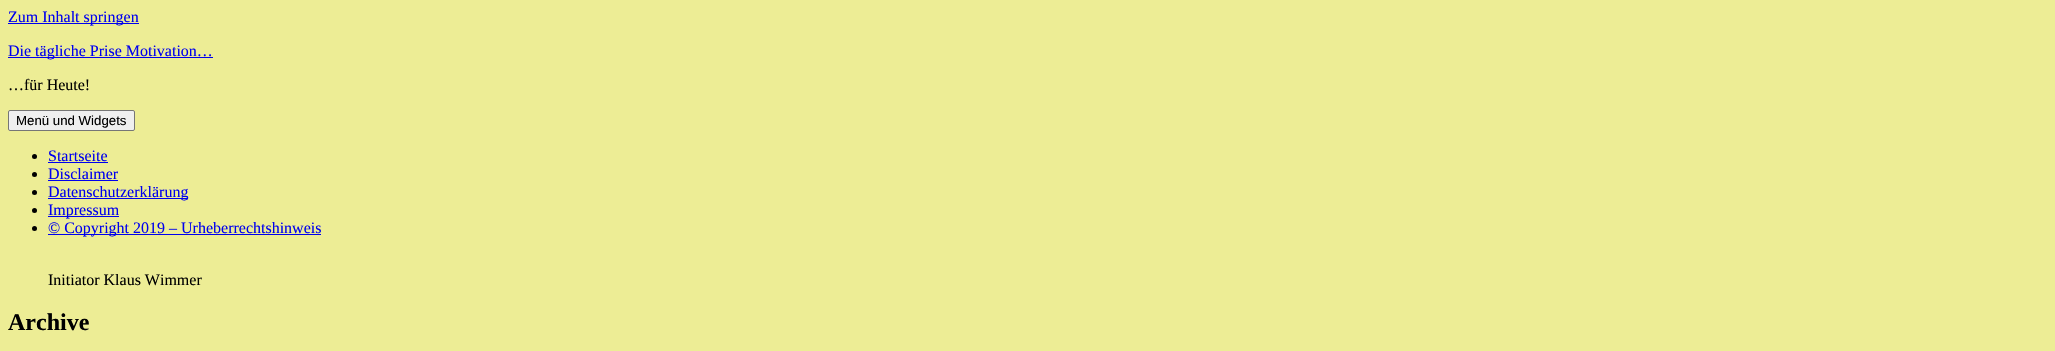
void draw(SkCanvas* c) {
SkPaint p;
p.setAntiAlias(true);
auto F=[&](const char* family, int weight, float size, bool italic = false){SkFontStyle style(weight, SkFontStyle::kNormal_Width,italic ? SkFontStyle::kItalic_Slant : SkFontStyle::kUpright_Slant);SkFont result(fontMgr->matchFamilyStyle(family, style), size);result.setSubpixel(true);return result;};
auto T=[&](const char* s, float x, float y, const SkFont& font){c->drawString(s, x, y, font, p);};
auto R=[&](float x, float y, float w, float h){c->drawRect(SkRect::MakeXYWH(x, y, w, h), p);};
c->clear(0xffeded95);
p.setColor(0xff0000ee);
R(8,23,131,1);
auto f1 = F("Liberation Serif",400,16);
T("Zum Inhalt springen",8,22,f1);
R(8,57,205,1);
T("Die tägliche Prise Motivation…",8,56,f1);
p.setColor(0xff000000);
T("…für Heute!",8,90,f1);
p.setColor(0xffefefef);
c->drawRoundRect(SkRect::MakeXYWH(8.5,110.5,126,20),1.5,1.5,p);
p.setStroke(true);
p.setStrokeWidth(1);
p.setColor(0xff767676);
c->drawRoundRect(SkRect::MakeXYWH(8.5,110.5,126,20),1.5,1.5,p);
auto f2 = F("Liberation Sans",400,13.25);
p.setStroke(false);
p.setColor(0xff000000);
T("Menü und Widgets",16,125,f2);
c->drawCircle(34.5,156.5,2.5,p);
p.setColor(0xff0000ee);
T("Startseite",48,161,f1);
R(48,162,60,1);
p.setColor(0xff000000);
c->drawCircle(34.5,174.5,2.5,p);
p.setColor(0xff0000ee);
T("Disclaimer",48,179,f1);
R(48,180,70,1);
p.setColor(0xff000000);
c->drawCircle(34.5,192.5,2.5,p);
p.setColor(0xff0000ee);
R(48,198,140,1);
T("Datenschutzerklärung",48,197,f1);
p.setColor(0xff000000);
c->drawCircle(34.5,210.5,2.5,p);
p.setColor(0xff0000ee);
R(48,216,71,1);
T("Impressum",48,215,f1);
p.setColor(0xff000000);
c->drawCircle(34.5,228.5,2.5,p);
p.setColor(0xff0000ee);
R(48,234,273,1);
T("© Copyright 2019 – Urheberrechtshinweis",48,233,f1);
p.setColor(0xff000000);
T("Initiator Klaus Wimmer",48,285,f1);
auto f3 = F("Liberation Serif",700,24);
T("Archive",8,330,f3);
}
